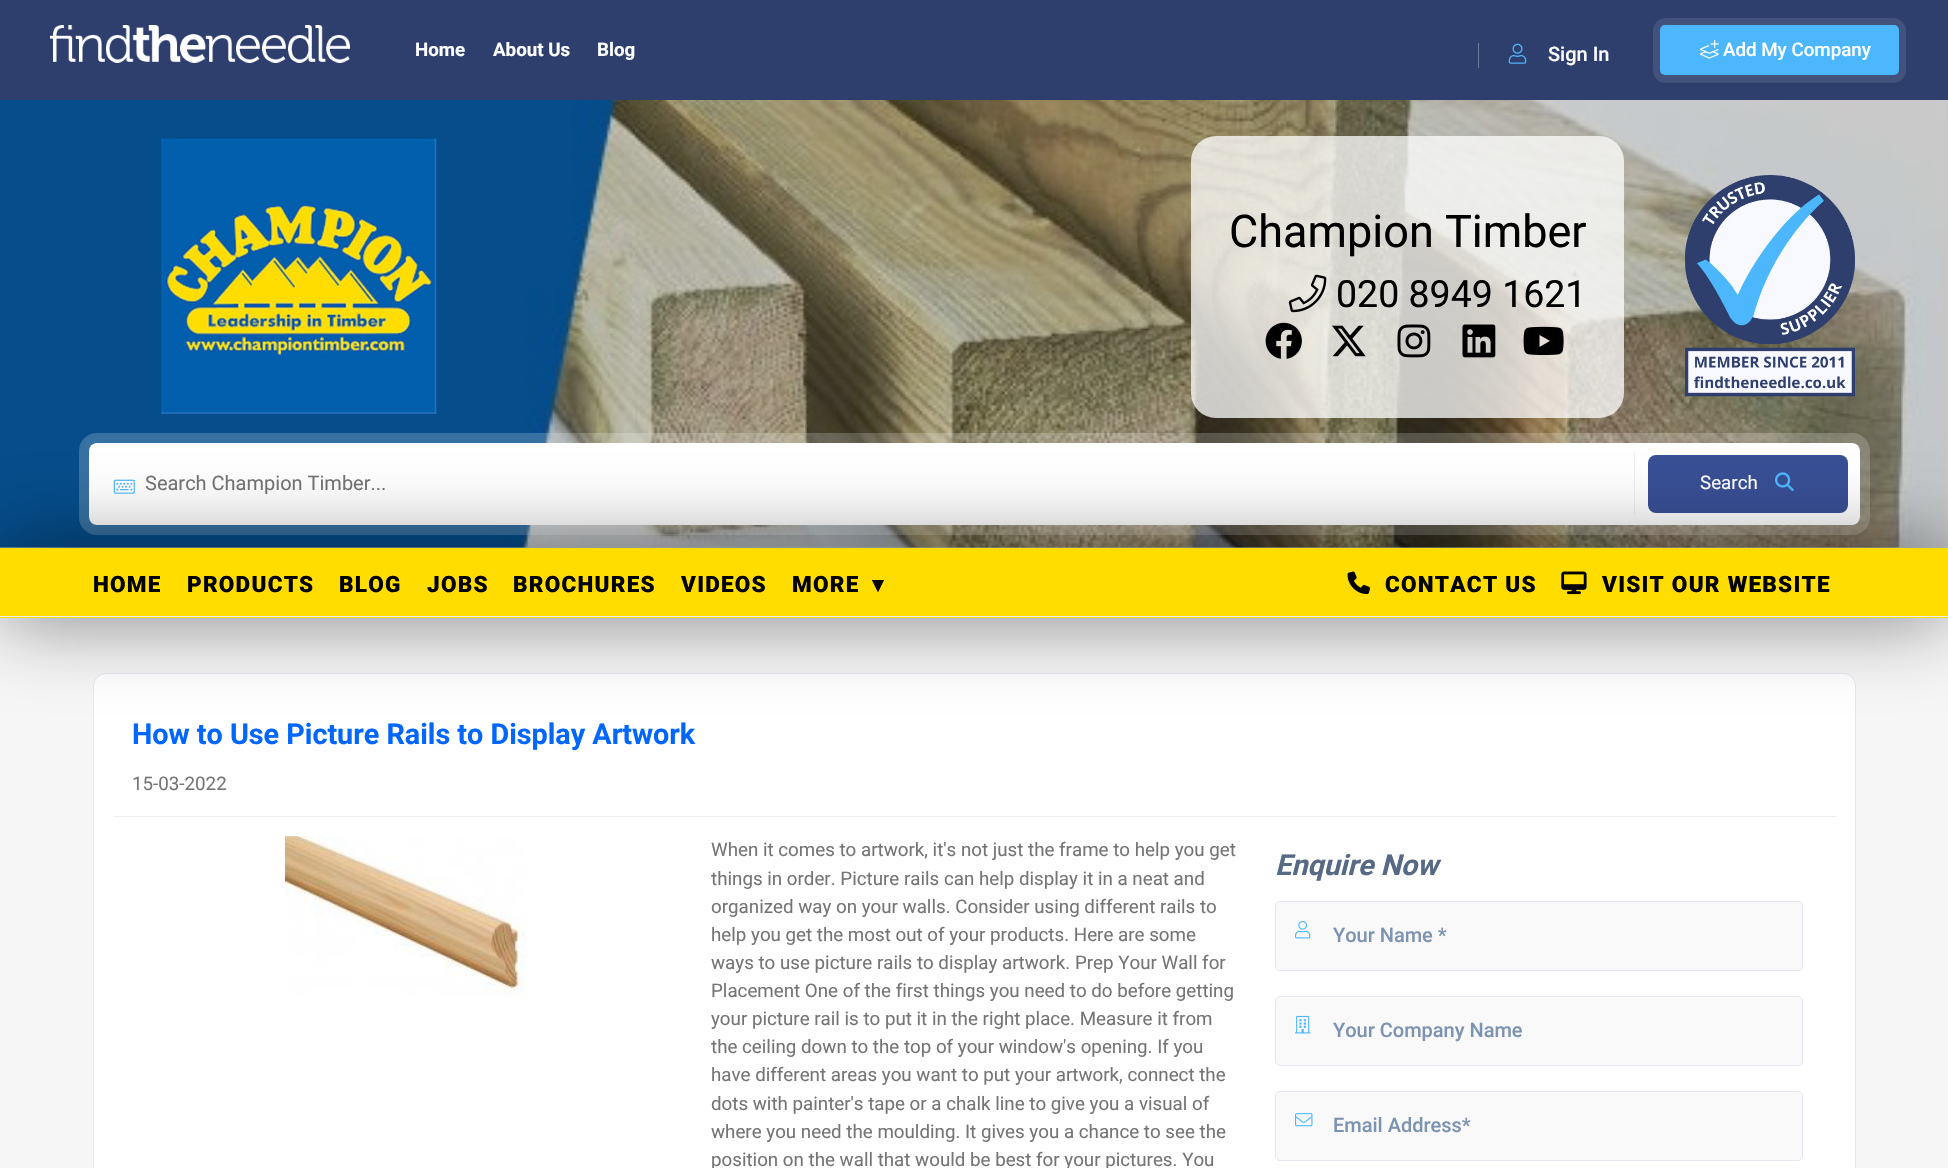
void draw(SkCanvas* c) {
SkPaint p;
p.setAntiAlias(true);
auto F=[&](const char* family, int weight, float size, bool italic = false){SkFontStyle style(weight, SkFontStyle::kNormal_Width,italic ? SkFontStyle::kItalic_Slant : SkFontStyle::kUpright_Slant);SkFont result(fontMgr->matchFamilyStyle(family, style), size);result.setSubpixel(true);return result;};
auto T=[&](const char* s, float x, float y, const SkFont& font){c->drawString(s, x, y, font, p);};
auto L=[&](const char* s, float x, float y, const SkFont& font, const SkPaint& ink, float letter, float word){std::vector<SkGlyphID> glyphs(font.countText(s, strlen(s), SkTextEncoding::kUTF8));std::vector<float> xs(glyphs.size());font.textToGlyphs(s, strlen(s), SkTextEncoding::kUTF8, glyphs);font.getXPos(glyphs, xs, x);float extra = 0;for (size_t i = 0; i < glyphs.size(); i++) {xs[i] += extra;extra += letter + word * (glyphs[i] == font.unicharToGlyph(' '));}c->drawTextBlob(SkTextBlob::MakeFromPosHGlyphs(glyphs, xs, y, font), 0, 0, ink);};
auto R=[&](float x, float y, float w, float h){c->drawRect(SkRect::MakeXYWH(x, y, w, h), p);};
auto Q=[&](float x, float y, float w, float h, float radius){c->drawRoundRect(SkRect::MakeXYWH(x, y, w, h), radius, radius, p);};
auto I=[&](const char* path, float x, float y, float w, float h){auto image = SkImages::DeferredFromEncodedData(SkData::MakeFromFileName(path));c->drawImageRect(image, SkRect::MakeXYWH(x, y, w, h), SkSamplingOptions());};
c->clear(0xffcccccc);
p.setColor(0xff2e3f6e);
R(0,0,1948,100);
I("1.png",50,25,300,38);
auto f1 = F("Roboto",700,18.75);
p.setColor(0xffffffff);
T("Home",415,56,f1);
T("About Us",493,56,f1);
T("Blog",597,56,f1);
p.setColor(0xff6f7b9b);
R(1478,43,1,25);
I("2.png",1508,43,19,21);
auto f2 = F("Roboto",500,20);
p.setColor(0xffffffff);
T("Sign In",1548,61,f2);
p.setStroke(true);
p.setStrokeWidth(8);
p.setColor(0xff43527d);
c->drawRoundRect(SkRect::MakeXYWH(1657,22,245,57),9,9,p);
p.setStroke(false);
p.setColor(0xff4db7fe);
Q(1660,25,239,50,5);
I("3.png",1700,39,19,20);
auto f3 = F("Roboto",500,18.75);
p.setColor(0xffffffff);
T("Add My Company",1723,56,f3);
I("4.png",0,100,1948,448);
I("5.png",161,138,276,276);
p.setColor(0xbfffffff);
Q(1191,136,433,282,25);
auto f4 = F("Roboto",400,45);
p.setColor(0xff000000);
T("Champion Timber",1229,247,f4);
I("6.png",1288,274,39,39);
auto f5 = F("Roboto",400,37.5);
T("020 8949 1621",1336,307,f5);
I("7.png",1265,322,37,37);
I("8.png",1332,325,34,32);
I("9.png",1397,324,34,34);
I("10.png",1462,324,34,34);
I("11.png",1523,326,41,29);
I("12.png",1685,175,171,222);
p.setStroke(true);
p.setStrokeWidth(10);
p.setColor(0x33ffffff);
c->drawRoundRect(SkRect::MakeXYWH(84,438,1781,92),13,13,p);
p.setStroke(false);
p.setColor(0xffffffff);
Q(89,443,1771,82,8);
p.setColor(0xffeeeeee);
R(1634,453,1,62);
I("13.png",113,479,22,15);
auto f6 = F("Roboto",400,20);
p.setColor(0xff757575);
T("Search Champion Timber...",145,490,f6);
p.setColor(0xff384f95);
Q(1648,455,200,58,8);
auto f7 = F("Roboto",400,18.75);
p.setColor(0xffffffff);
T("Search",1700,489,f7);
I("14.png",1775,472,19,20);
p.setColor(0xfff6f6f6);
R(0,618,1948,550);
p.setColor(0xffffffff);
c->drawRoundRect(SkRect::MakeXYWH(93.5,673.5,1762,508),12.5,12.5,p);
p.setStroke(true);
p.setStrokeWidth(1);
p.setColor(0xffe5e7f2);
c->drawRoundRect(SkRect::MakeXYWH(93.5,673.5,1762,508),12.5,12.5,p);
p.setStroke(false);
p.setColor(0x80000000);
p.setMaskFilter(SkMaskFilter::MakeBlur(kNormal_SkBlurStyle, 40.5));
c->drawRect(SkRect::MakeXYWH(0,548,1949,70),p);
p.setMaskFilter(nullptr);
p.setColor(0xffffdd00);
R(0,548,1948,70);
p.setColor(0xffeeeeee);
R(0,616,1948,1);
auto f8 = F("Roboto",900,22.5);
p.setColor(0xff000000);
L("HOME",93,592,f8,p,1.25,0);
L("PRODUCTS",187,592,f8,p,1.25,0);
L("BLOG",339,592,f8,p,1.25,0);
L("JOBS",427,592,f8,p,1.25,0);
L("BROCHURES",513,592,f8,p,1.25,0);
L("VIDEOS",681,592,f8,p,1.25,0);
L("MORE",792,592,f8,p,1.25,0);
auto f9 = F("DejaVu Sans",700,22.5);
L("▾",872,592,f9,p,1.25,0);
I("15.png",1347,571,23,24);
L("CONTACT US",1385,592,f8,p,1.25,0);
I("16.png",1561,571,26,24);
L("VISIT OUR WEBSITE",1602,592,f8,p,1.25,0);
auto f10 = F("Roboto",700,28.75);
p.setColor(0xff0066ff);
T("How to Use Picture Rails to Display Artwork",132,744,f10);
p.setColor(0xff757575);
T("15-03-2022",132,790,f7);
p.setColor(0xffeeeeee);
R(113,816,1723,1);
I("17.png",285,836,241,161);
p.setColor(0xff757575);
T("When it comes to artwork, it's not just the frame to help you get",711,856,f7);
T("things in order. Picture rails can help display it in a neat and",711,885,f7);
T("organized way on your walls. Consider using different rails to",711,913,f7);
T("help you get the most out of your products. Here are some",711,941,f7);
T("ways to use picture rails to display artwork. Prep Your Wall for",711,969,f7);
T("Placement One of the first things you need to do before getting",711,997,f7);
T("your picture rail is to put it in the right place. Measure it from",711,1025,f7);
T("the ceiling down to the top of your window's opening. If you",711,1053,f7);
T("have different areas you want to put your artwork, connect the",711,1081,f7);
T("dots with painter's tape or a chalk line to give you a visual of",711,1110,f7);
T("where you need the moulding. It gives you a chance to see the",711,1138,f7);
T("position on the wall that would be best for your pictures. You",711,1166,f7);
auto f11 = F("Roboto",700,28.75,true);
p.setColor(0xff566985);
T("Enquire Now",1275,875,f11);
p.setColor(0xfff9f9f9);
c->drawRoundRect(SkRect::MakeXYWH(1275.5,901.5,527,69),4.5,4.5,p);
p.setStroke(true);
p.setColor(0xffe5e7f2);
c->drawRoundRect(SkRect::MakeXYWH(1275.5,901.5,527,69),4.5,4.5,p);
I("18.png",1295,920,16,19);
p.setStroke(false);
p.setColor(0xff7d93b2);
T("Your Name *",1333,942,f2);
p.setColor(0xfff9f9f9);
c->drawRoundRect(SkRect::MakeXYWH(1275.5,996.5,527,69),4.5,4.5,p);
p.setStroke(true);
p.setColor(0xffe5e7f2);
c->drawRoundRect(SkRect::MakeXYWH(1275.5,996.5,527,69),4.5,4.5,p);
I("19.png",1295,1015,16,19);
p.setStroke(false);
p.setColor(0xff7d93b2);
T("Your Company Name",1333,1037,f2);
p.setColor(0xfff9f9f9);
c->drawRoundRect(SkRect::MakeXYWH(1275.5,1091.5,527,69),4.5,4.5,p);
p.setStroke(true);
p.setColor(0xffe5e7f2);
c->drawRoundRect(SkRect::MakeXYWH(1275.5,1091.5,527,69),4.5,4.5,p);
I("20.png",1295,1113,18,14);
p.setStroke(false);
p.setColor(0xff7d93b2);
T("Email Address*",1333,1132,f2);
}
